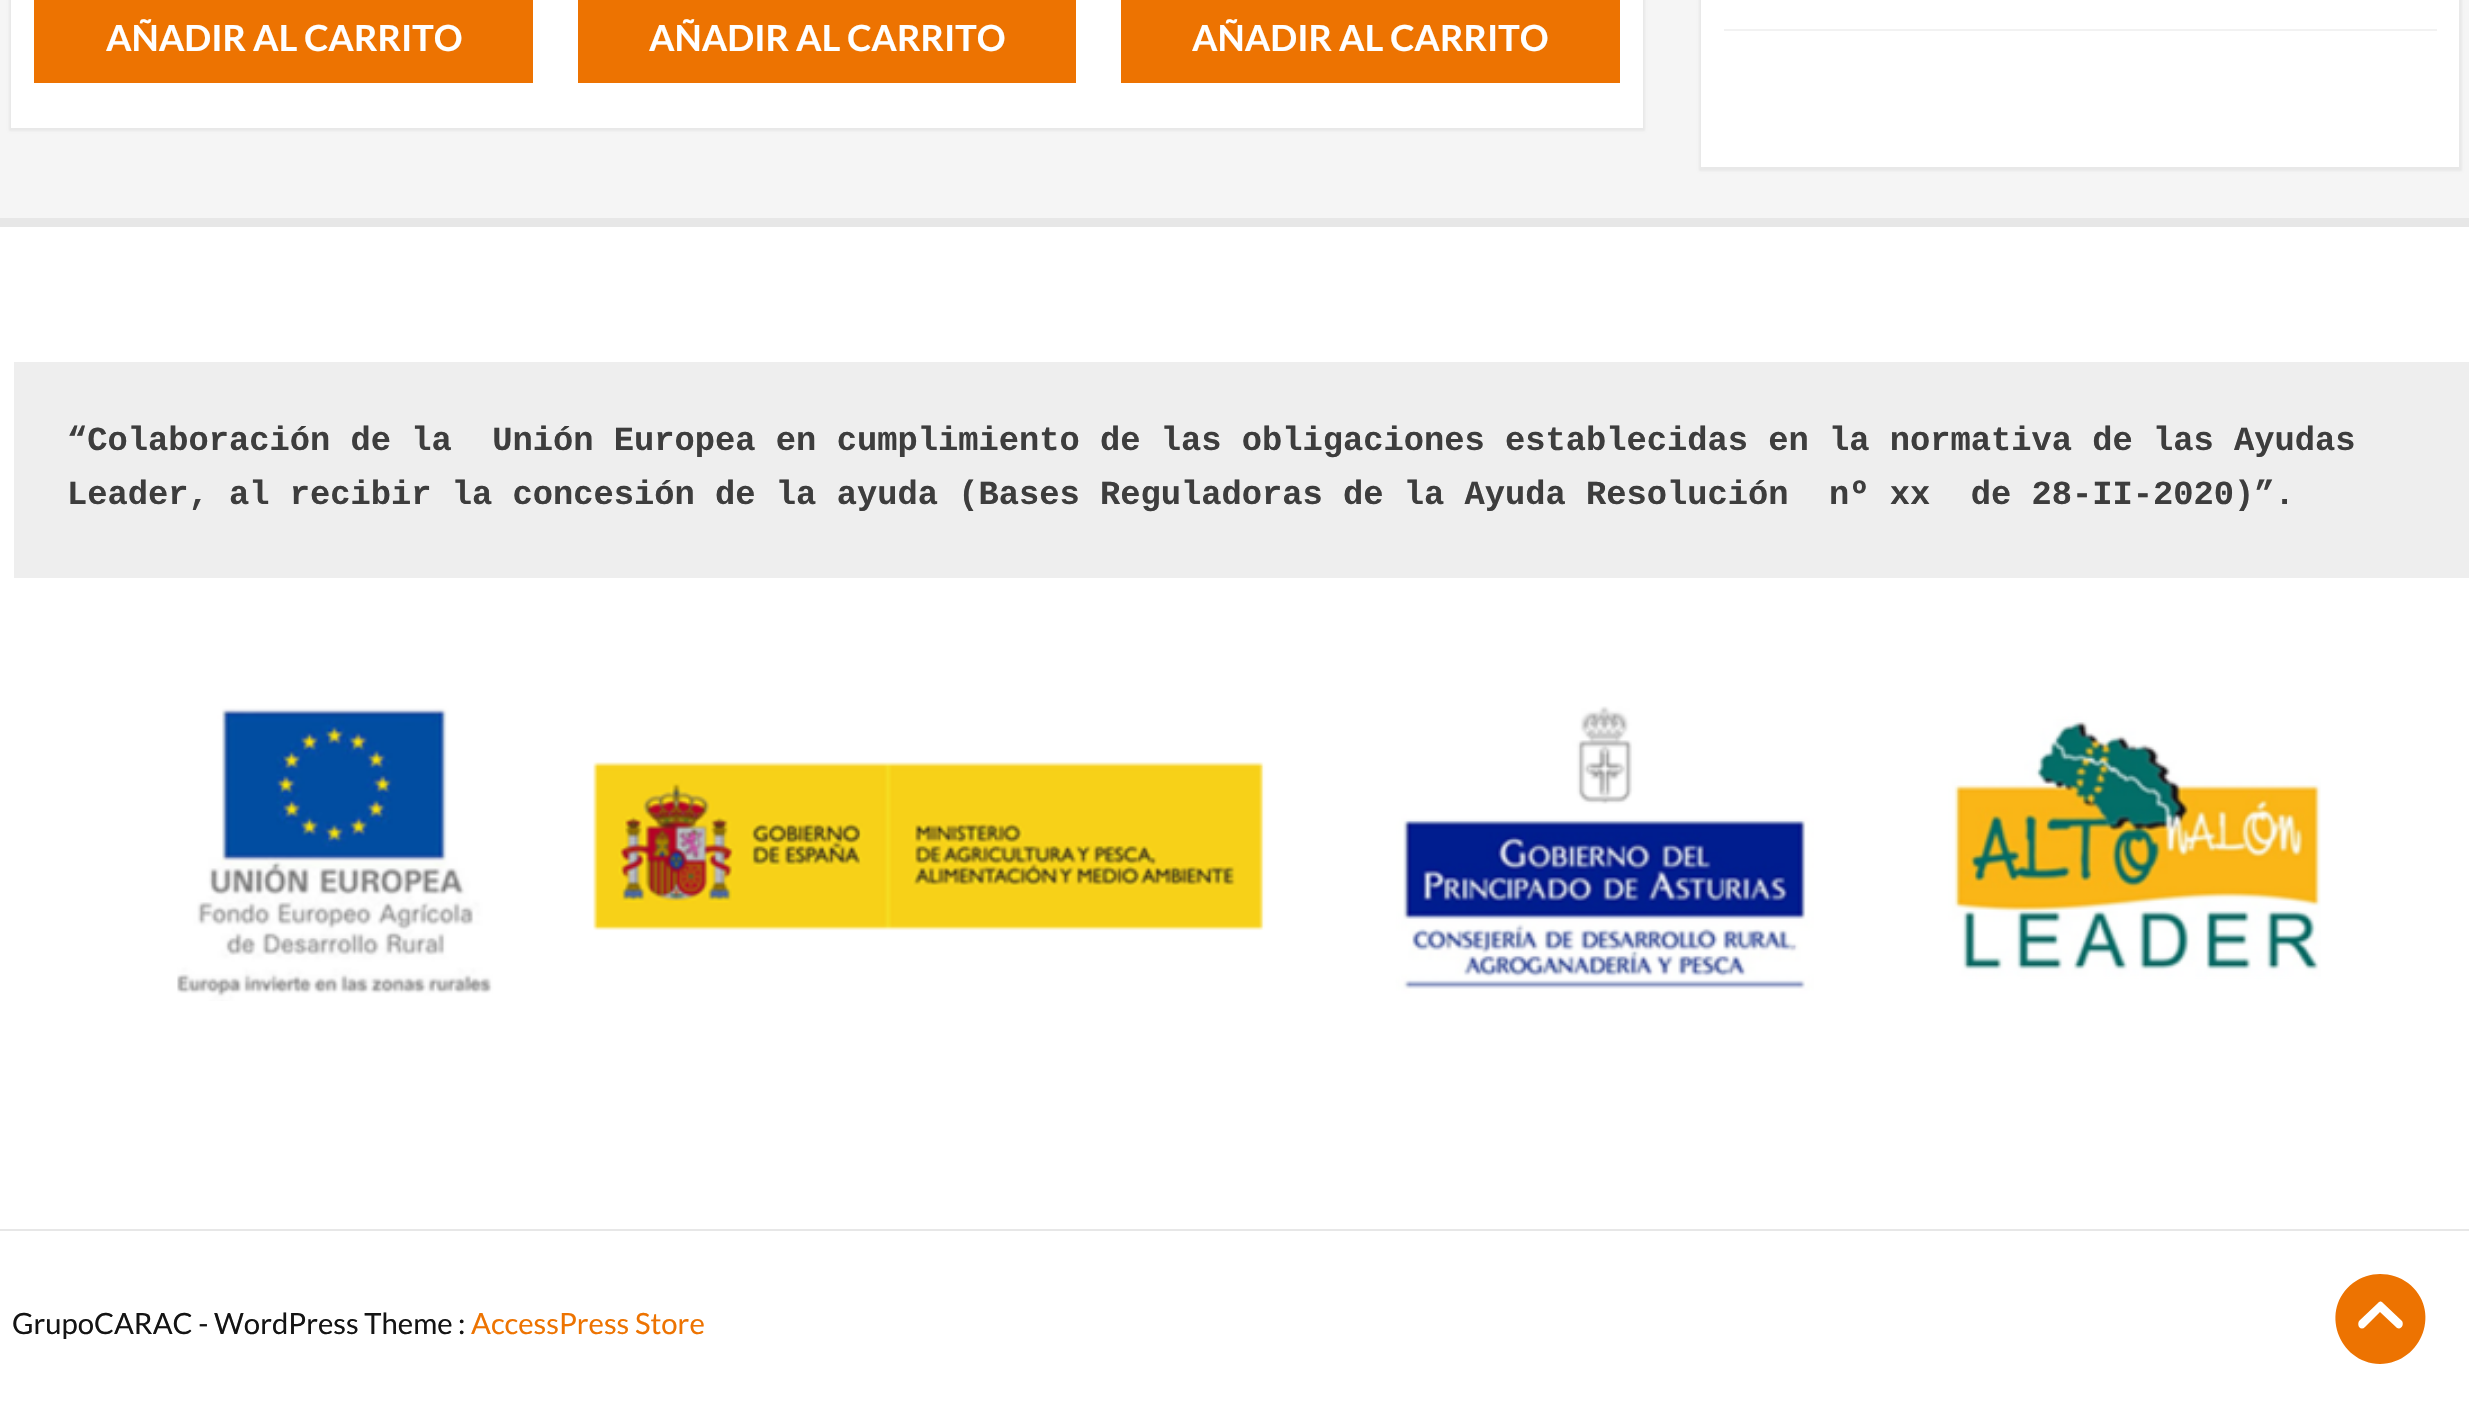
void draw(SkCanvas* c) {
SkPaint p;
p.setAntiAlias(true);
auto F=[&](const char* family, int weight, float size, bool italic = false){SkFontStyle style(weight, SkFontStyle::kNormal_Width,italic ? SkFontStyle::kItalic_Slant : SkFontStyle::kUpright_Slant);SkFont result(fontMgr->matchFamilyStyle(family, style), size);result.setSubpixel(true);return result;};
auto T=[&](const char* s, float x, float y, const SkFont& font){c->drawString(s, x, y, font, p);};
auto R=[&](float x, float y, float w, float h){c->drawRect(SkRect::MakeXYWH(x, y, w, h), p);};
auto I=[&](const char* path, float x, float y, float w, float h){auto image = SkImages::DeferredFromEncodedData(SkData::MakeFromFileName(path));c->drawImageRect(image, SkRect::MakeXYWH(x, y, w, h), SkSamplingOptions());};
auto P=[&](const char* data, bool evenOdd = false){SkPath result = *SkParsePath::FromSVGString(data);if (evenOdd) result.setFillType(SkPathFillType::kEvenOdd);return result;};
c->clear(0xffffffff);
p.setColor(0xffe7e7e7);
R(0,218,2469,9);
p.setColor(0xfff5f5f5);
R(0,0,2469,218);
p.setColor(0x0d000000);
p.setMaskFilter(SkMaskFilter::MakeBlur(kNormal_SkBlurStyle, 1));
c->drawRect(SkRect::MakeXYWH(9,-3,1636,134),p);
p.setMaskFilter(nullptr);
p.setColor(0xffffffff);
R(11,0,1632,128);
p.setColor(0xffed7301);
R(34,0,499,83);
auto f1 = F("Lato",700,36);
p.setColor(0xffffffff);
T("AÑADIR AL CARRITO",106,51,f1);
p.setColor(0xffed7301);
R(578,0,498,83);
p.setColor(0xffffffff);
T("AÑADIR AL CARRITO",649,51,f1);
p.setColor(0xffed7301);
R(1121,0,499,83);
p.setColor(0xffffffff);
T("AÑADIR AL CARRITO",1192,51,f1);
p.setColor(0x0d000000);
p.setMaskFilter(SkMaskFilter::MakeBlur(kNormal_SkBlurStyle, 1));
c->drawRect(SkRect::MakeXYWH(1699,-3,763,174),p);
p.setMaskFilter(nullptr);
p.setColor(0xffffffff);
R(1701,0,758,167);
p.setColor(0xfff2f2f2);
R(1724,29,713,2);
p.setColor(0xffeeeeee);
R(14,362,2455,216);
auto f2 = F("Liberation Mono",700,33.75);
p.setColor(0xff3d3d3d);
T("“Colaboración de la  Unión Europea en cumplimiento de las obligaciones establecidas en la normativa de las Ayudas",67,450,f2);
T("Leader, al recibir la concesión de la ayuda (Bases Reguladoras de la Ayuda Resolución  nº xx  de 28-II-2020)”.",67,504,f2);
I("1.png",177,706,2144,295);
p.setColor(0xffe7e7e7);
R(0,1229,2469,2);
auto f3 = F("Lato",400,29.25);
p.setColor(0xff141414);
T("GrupoCARAC - WordPress Theme :",12,1334,f3);
p.setColor(0xffed7301);
T("AccessPress Store",471,1334,f3);
c->drawPath(P("M2380 1364c43-1 62-55 28-81c-8-6-18-9-28-9c-9 0-19 3-27 9c-34 26-15 80 27 81zm22-43c2 3 0 9-5 7l-17-16l-15 15c-2 2-4 2-6 0c-1-2-1-4 0-6l19-18c2-2 3-2 5 0z"),p);
}
